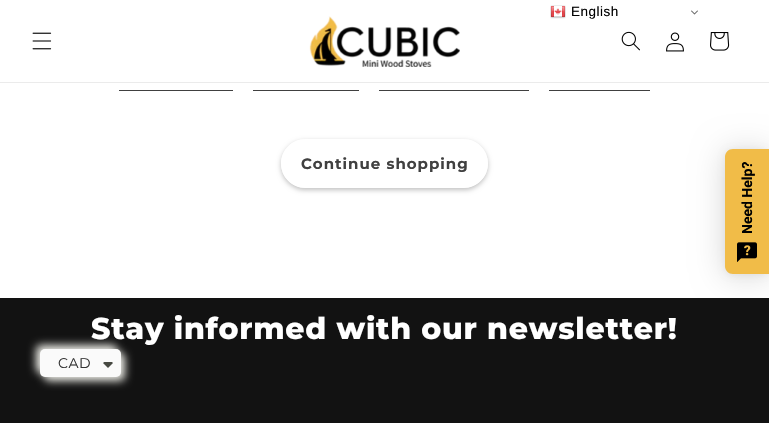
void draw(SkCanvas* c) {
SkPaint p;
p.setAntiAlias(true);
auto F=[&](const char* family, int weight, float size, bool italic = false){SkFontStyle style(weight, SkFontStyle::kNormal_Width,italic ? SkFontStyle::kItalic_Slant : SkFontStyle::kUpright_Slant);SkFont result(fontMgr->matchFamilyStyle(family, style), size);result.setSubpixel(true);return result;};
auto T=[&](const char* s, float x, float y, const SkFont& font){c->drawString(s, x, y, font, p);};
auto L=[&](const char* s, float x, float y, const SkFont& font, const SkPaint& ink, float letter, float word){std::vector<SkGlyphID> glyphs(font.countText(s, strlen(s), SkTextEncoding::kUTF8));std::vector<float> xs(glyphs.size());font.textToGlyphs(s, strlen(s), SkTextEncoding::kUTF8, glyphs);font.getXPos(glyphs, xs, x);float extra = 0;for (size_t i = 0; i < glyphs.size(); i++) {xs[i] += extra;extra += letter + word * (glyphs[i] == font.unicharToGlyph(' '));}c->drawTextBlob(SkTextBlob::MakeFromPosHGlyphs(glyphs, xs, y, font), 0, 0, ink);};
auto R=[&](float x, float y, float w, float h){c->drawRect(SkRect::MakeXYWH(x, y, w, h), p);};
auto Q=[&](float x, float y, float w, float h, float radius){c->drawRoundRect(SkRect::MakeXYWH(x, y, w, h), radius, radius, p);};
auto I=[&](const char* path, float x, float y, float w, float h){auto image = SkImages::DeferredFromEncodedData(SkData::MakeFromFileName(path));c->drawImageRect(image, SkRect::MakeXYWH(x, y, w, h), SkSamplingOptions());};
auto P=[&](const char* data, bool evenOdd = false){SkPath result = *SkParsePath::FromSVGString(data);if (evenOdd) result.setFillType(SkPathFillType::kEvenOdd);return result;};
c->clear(0xffffffff);
p.setColor(0xffebebeb);
R(0,82,769,1);
I("1.png",550,5,16,14);
auto f1 = F("Liberation Sans",400,13.5);
p.setColor(0xff000000);
L("English",571,16,f1,p,.5,0);
I("2.png",691,10,7,5);
I("3.png",621,31,19,20);
I("4.png",666,32,18,20);
I("5.png",710,32,20,19);
I("6.png",32,32,20,18);
I("7.png",309,16,151,51);
p.setColor(0xff404040);
R(119,90,114,1);
R(253,90,106,1);
R(379,90,150,1);
R(549,90,101,1);
c->save();
c->clipPath(P("M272 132h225v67h-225zm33.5 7h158c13.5 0 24.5 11 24.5 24.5c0 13.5-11 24.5-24.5 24.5h-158c-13.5 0-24.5-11-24.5-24.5c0-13.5 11-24.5 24.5-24.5z",true),true);
p.setColor(0x40000000);
p.setMaskFilter(SkMaskFilter::MakeBlur(kNormal_SkBlurStyle, 2.5));
c->drawRoundRect(SkRect::MakeXYWH(281,141,207,49),24.5,24.5,p);
p.setMaskFilter(nullptr);
c->restore();
p.setStroke(true);
p.setStrokeWidth(2);
p.setColor(0xffffffff);
c->drawRoundRect(SkRect::MakeXYWH(282,140,205,47),23.5,23.5,p);
auto f2 = F("Montserrat",700,15);
p.setStroke(false);
p.setColor(0xff404040);
L("Continue shopping",301,169,f2,p,1,0);
p.setColor(0xff121212);
R(0,298,769,125);
p.setColor(0x29000000);
p.setMaskFilter(SkMaskFilter::MakeBlur(kNormal_SkBlurStyle, 16));
c->drawRoundRect(SkRect::MakeXYWH(725,151,44,125),8,8,p);
p.setMaskFilter(nullptr);
p.setColor(0x0f000000);
p.setMaskFilter(SkMaskFilter::MakeBlur(kNormal_SkBlurStyle, 3));
c->drawRoundRect(SkRect::MakeXYWH(725,150,44,125),8,8,p);
p.setMaskFilter(nullptr);
p.setColor(0xfff1bc48);
c->drawPath(P("M733 149h36v125h-36c-4.5 0-8-3.5-8-8v-109c0-4.5 3.5-8 8-8z"),p);
auto f3 = F("Roboto",700,14);
p.setColor(0xff000000);
c->save();
c->rotate(-90,752,234);
T("Need Help?",752,234,f3);
c->restore();
I("8.png",737,242,20,20);
auto f4 = F("Montserrat",800,30);
p.setColor(0xffffffff);
L("Stay informed with our newsletter!",91,339,f4,p,.75,0);
p.setColor(0xffe8e8e2);
p.setMaskFilter(SkMaskFilter::MakeBlur(kNormal_SkBlurStyle, 4.5));
c->drawRoundRect(SkRect::MakeXYWH(36,345,81,28),5,5,p);
p.setMaskFilter(nullptr);
p.setMaskFilter(SkMaskFilter::MakeBlur(kNormal_SkBlurStyle, 4.5));
c->drawRoundRect(SkRect::MakeXYWH(44,353,81,28),5,5,p);
p.setMaskFilter(nullptr);
p.setColor(0xfffafafa);
Q(40,349,81,28,5);
auto f5 = F("Montserrat",400,14);
p.setColor(0xff333333);
L("CAD",58,368,f5,p,.5,0);
p.setColor(0xff474942);
c->drawPath(P("M105 362c-1 0-1.5 .5-2 1l5 5l5-5l-1-1z"),p);
}
